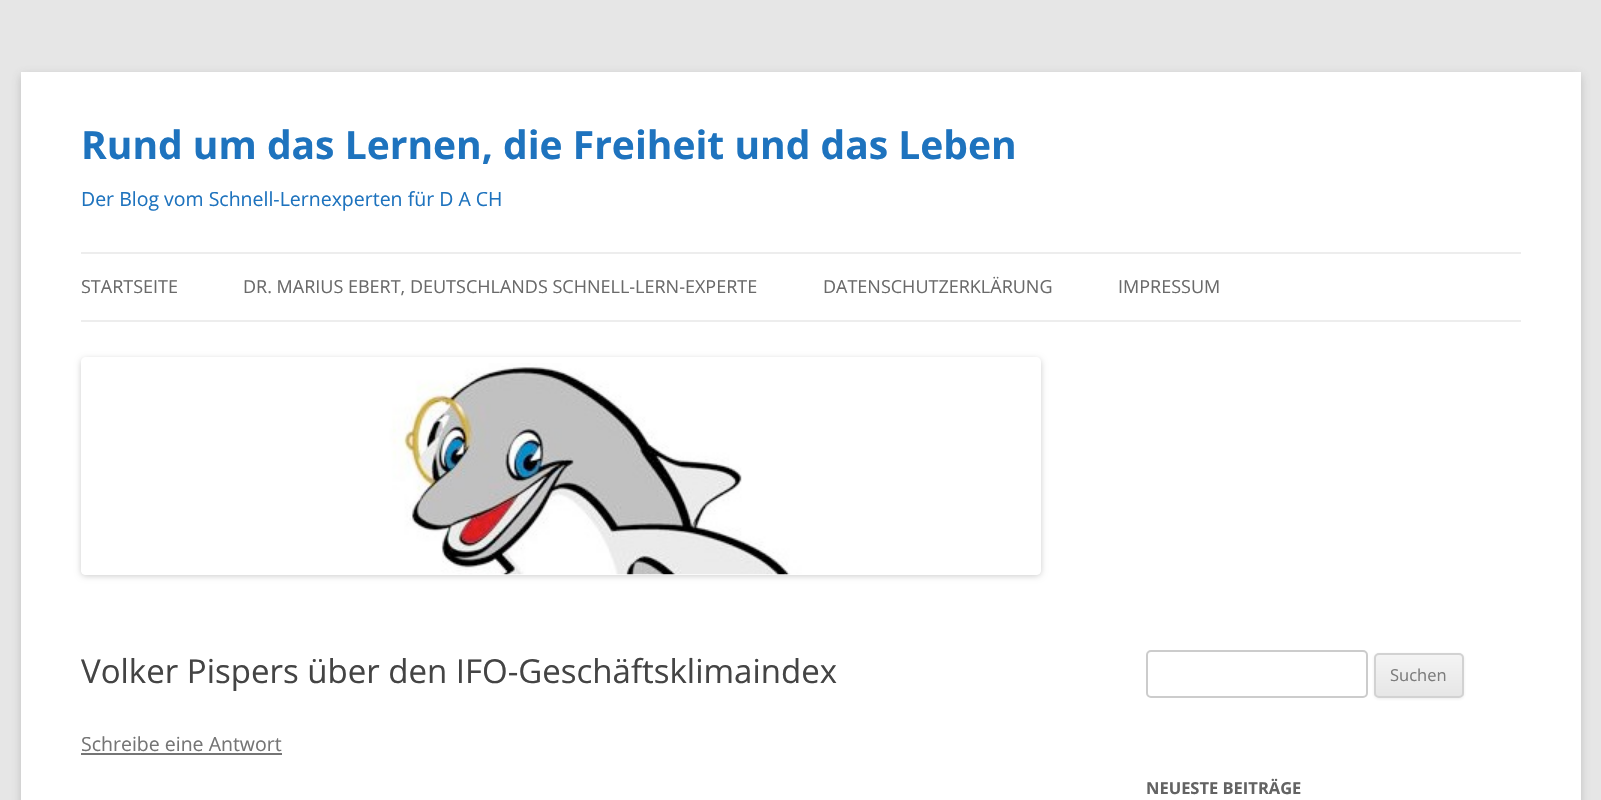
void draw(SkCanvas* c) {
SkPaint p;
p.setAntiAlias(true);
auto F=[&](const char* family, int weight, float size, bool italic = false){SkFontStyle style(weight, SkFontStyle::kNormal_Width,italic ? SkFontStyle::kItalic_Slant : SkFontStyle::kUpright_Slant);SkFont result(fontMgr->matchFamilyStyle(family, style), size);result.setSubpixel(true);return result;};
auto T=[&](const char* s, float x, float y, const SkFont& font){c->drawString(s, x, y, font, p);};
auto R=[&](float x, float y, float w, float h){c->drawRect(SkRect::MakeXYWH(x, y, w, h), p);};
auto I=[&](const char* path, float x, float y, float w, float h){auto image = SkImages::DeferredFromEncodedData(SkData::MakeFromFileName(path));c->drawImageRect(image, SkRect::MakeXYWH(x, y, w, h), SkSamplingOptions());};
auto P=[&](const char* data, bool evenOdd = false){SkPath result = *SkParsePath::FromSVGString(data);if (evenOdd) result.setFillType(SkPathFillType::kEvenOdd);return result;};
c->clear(0xffe6e6e6);
p.setColor(0x4d646464);
p.setMaskFilter(SkMaskFilter::MakeBlur(kNormal_SkBlurStyle, 4.5));
c->drawRect(SkRect::MakeXYWH(21,75,1560,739),p);
p.setMaskFilter(nullptr);
p.setColor(0xffffffff);
R(21,72,1560,728);
auto f1 = F("Open Sans",700,39);
p.setColor(0xff1e73be);
T("Rund um das Lernen, die Freiheit und das Leben",81,159,f1);
auto f2 = F("Open Sans",400,19.5);
T("Der Blog vom Schnell-Lernexperten für D A CH",81,206,f2);
p.setColor(0xffededed);
R(81,252,1440,2);
R(81,320,1440,2);
auto f3 = F("Open Sans",400,18);
p.setColor(0xff6a6a6a);
T("STARTSEITE",81,293,f3);
T("DR. MARIUS EBERT, DEUTSCHLANDS SCHNELL-LERN-EXPERTE",243,293,f3);
T("DATENSCHUTZERKLÄRUNG",823,293,f3);
T("IMPRESSUM",1118,293,f3);
c->save();
c->clipPath(P("M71 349h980v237h-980zm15 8h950c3 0 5 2 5 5v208c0 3-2 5-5 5h-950c-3 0-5-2-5-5v-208c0-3 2-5 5-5z",true),true);
p.setColor(0x33000000);
p.setMaskFilter(SkMaskFilter::MakeBlur(kNormal_SkBlurStyle, 3));
c->drawRoundRect(SkRect::MakeXYWH(81,359,960,217),5,5,p);
p.setMaskFilter(nullptr);
c->restore();
I("1.png",81,363,960,212);
auto f4 = F("Open Sans",400,33);
p.setColor(0xff444444);
T("Volker Pispers über den IFO-Geschäftsklimaindex",81,683,f4);
p.setColor(0xff757575);
T("Schreibe eine Antwort",81,751,f2);
R(81,753,201,2);
p.setStroke(true);
p.setStrokeWidth(2);
p.setColor(0xffcccccc);
c->drawRoundRect(SkRect::MakeXYWH(1147,651,220,46),4,4,p);
p.setStroke(false);
p.setColor(0x1a404040);
p.setMaskFilter(SkMaskFilter::MakeBlur(kNormal_SkBlurStyle, 1.5));
c->drawRoundRect(SkRect::MakeXYWH(1374,654,90,45),5,5,p);
p.setMaskFilter(nullptr);
c->save();
c->clipPath(P("M1379 653h80c3 0 5 2 5 5v35c0 3-2 5-5 5h-80c-3 0-5-2-5-5v-35c0-3 2-5 5-5z"),true);
{
const SkColor colors[] = {0xfff4f4f4,0xffe6e6e6};
const float stops[] = {0,1};
const SkPoint ends[] = {{1419,654}, {1419,696}};
p.setShader(SkGradientShader::MakeLinear(ends, colors, stops, 2, SkTileMode::kClamp));
p.setAlpha(255);
}
R(1374,654,90,42);
c->restore();
p.setStroke(true);
p.setShader(nullptr);
p.setColor(0xffd2d2d2);
c->drawRoundRect(SkRect::MakeXYWH(1375,654,88,43),4,4,p);
auto f5 = F("Open Sans",400,16.5);
p.setStroke(false);
p.setColor(0xff7c7c7c);
T("Suchen",1390,681,f5);
auto f6 = F("Open Sans",700,16.5);
p.setColor(0xff636363);
T("NEUESTE BEITRÄGE",1146,794,f6);
}
